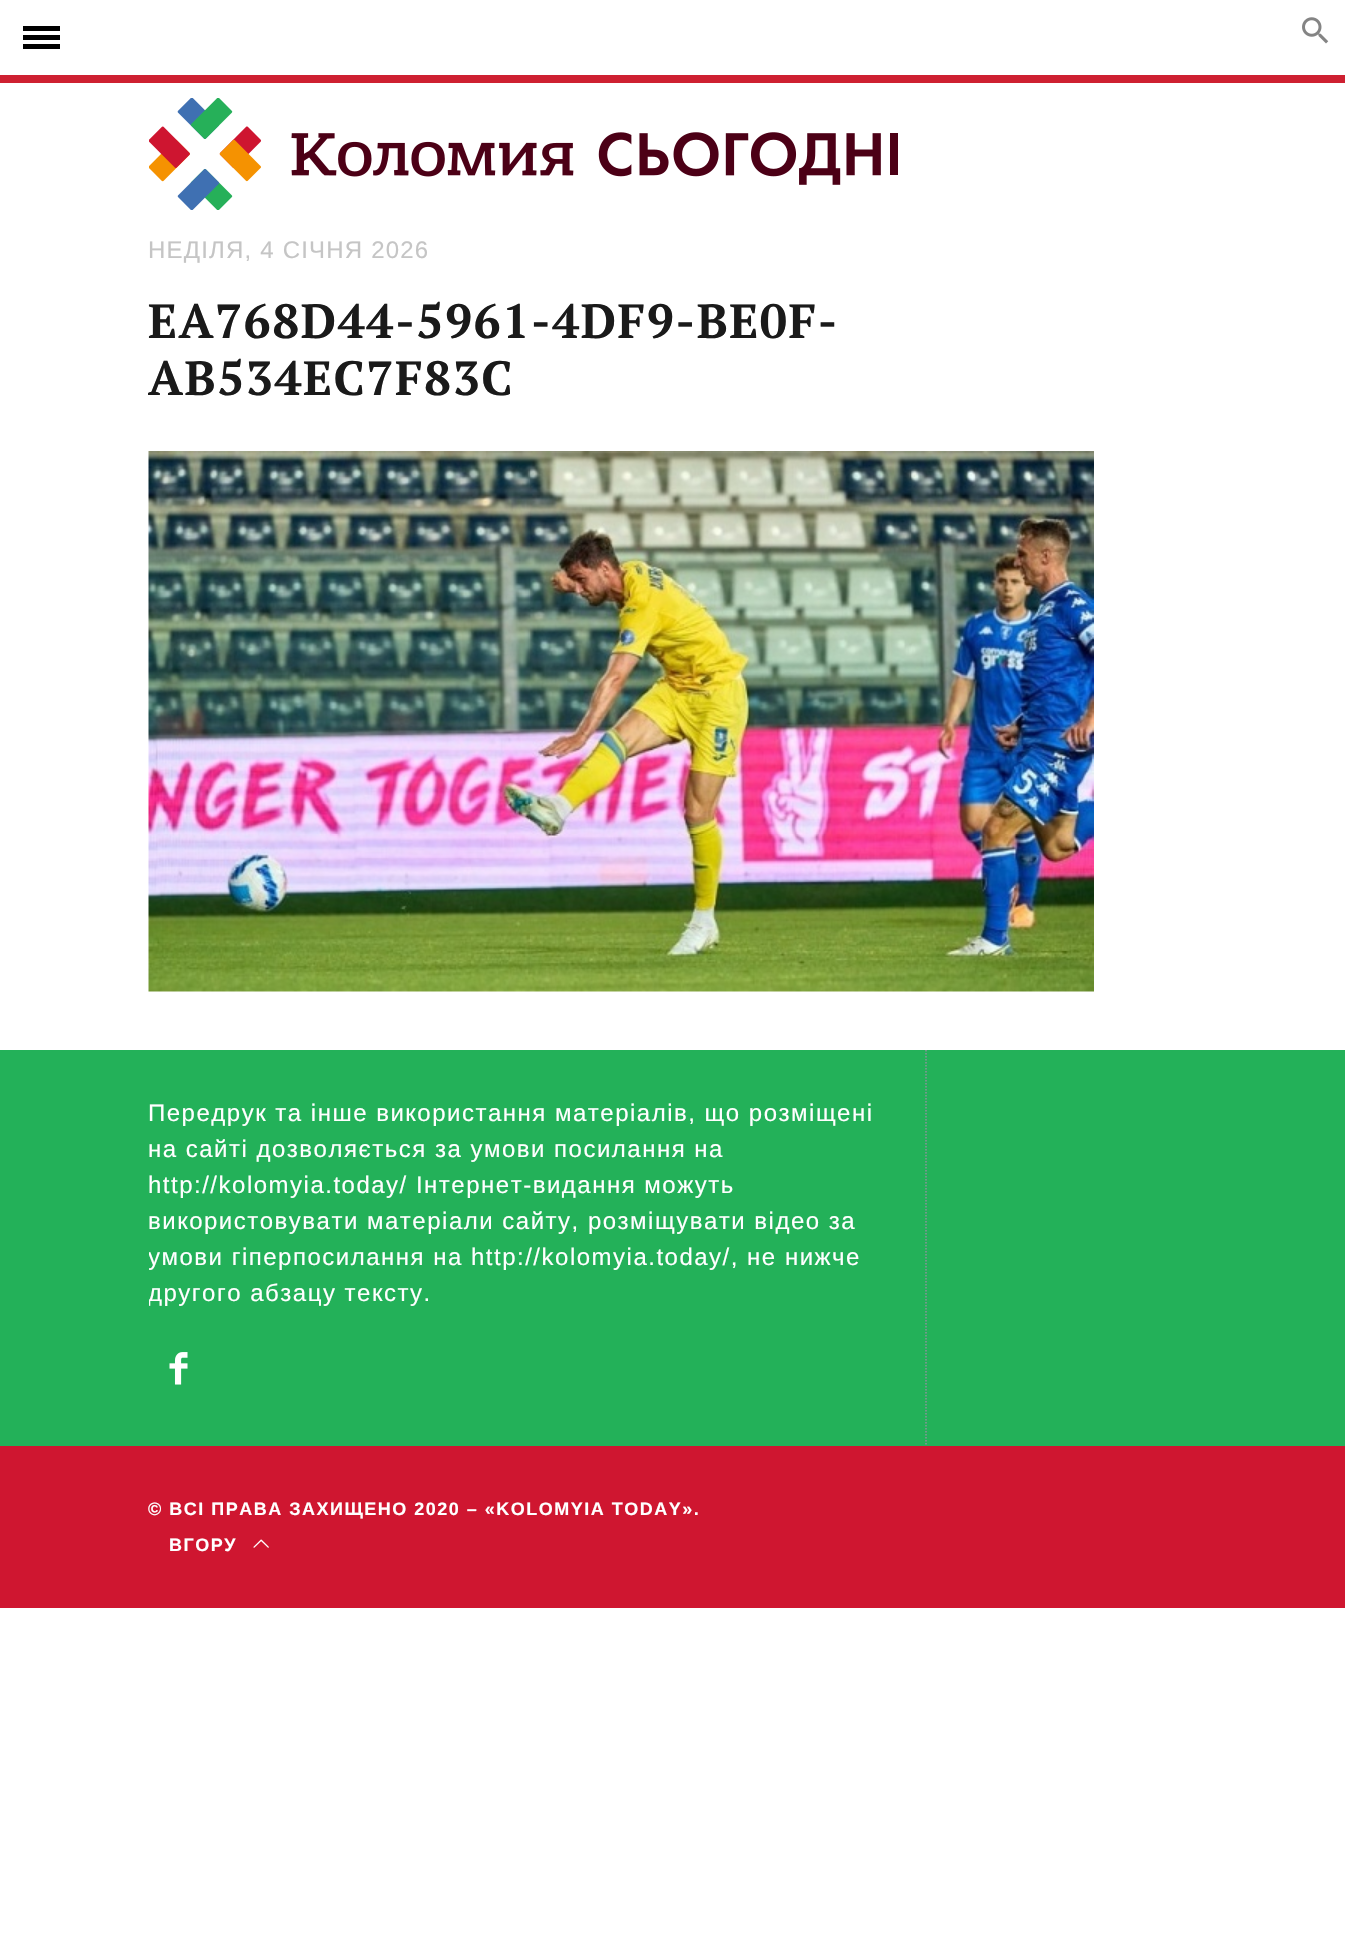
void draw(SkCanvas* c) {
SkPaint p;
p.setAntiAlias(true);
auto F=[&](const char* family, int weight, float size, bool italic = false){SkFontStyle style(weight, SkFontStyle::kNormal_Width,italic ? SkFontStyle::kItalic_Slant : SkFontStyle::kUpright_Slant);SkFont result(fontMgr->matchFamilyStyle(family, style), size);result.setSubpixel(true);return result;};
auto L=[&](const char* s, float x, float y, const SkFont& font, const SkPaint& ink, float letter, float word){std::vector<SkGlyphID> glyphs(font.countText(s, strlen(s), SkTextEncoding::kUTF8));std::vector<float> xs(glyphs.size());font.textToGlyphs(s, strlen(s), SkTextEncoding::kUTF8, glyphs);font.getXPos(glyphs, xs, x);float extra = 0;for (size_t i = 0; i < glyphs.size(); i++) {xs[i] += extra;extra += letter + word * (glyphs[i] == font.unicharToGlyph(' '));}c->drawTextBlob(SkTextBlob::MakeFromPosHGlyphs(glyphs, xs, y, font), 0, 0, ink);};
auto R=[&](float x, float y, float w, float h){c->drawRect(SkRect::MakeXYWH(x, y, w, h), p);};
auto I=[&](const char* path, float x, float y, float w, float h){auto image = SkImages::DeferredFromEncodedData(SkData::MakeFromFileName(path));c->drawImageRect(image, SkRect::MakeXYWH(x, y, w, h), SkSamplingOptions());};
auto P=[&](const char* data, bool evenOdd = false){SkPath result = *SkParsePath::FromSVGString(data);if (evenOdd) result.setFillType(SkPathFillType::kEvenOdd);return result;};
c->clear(0xffffffff);
I("1.png",1302,17,27,27);
p.setColor(0xffce2031);
R(0,75,1345,8);
p.setColor(0xff000000);
R(23,35,37,5);
R(23,26,37,5);
R(23,44,37,5);
I("2.png",149,98,749,112);
auto f1 = F("Liberation Sans",400,24);
p.setColor(0xffc5c5c5);
L("НЕДІЛЯ, 4 СІЧНЯ 2026",148,258,f1,p,1.2,0);
auto f2 = F("PT Serif",700,48);
p.setColor(0xff1a1a1a);
L("EA768D44-5961-4DF9-BE0F-",148,338,f2,p,1.5,0);
L("AB534EC7F83C",148,395,f2,p,1.5,0);
I("3.png",148,451,946,541);
p.setColor(0xff23b159);
R(0,1050,1345,396);
p.setColor(0xffffffff);
L("Передрук та інше використання матеріалів, що розміщені",148,1121,f1,p,1.5,0);
L("на сайті дозволяється за умови посилання на",148,1157,f1,p,1.5,0);
L("http://kolomyia.today/ Інтернет-видання можуть",148,1193,f1,p,1.5,0);
L("використовувати матеріали сайту, розміщувати відео за",148,1229,f1,p,1.5,0);
c->save();
c->clipRect(SkRect::MakeXYWH(149,1050,1050,396));
L("умови гіперпосилання на http://kolomyia.today/, не нижче",148,1265,f1,p,1.5,0);
L("другого абзацу тексту.",148,1301,f1,p,1.5,0);
c->restore();
I("4.png",169,1352,19,33);
c->save();
c->clipRect(SkRect::MakeXYWH(149,1050,1050,396));
p.setStroke(true);
p.setStrokeWidth(1.5);
p.setColor(0xff8c919b);
p.setPathEffect(SkDashPathEffect::Make({{1.5f,1.5f}}, 0));
c->drawPath(P("M926 1050v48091.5"),p);
p.setPathEffect(nullptr);
c->restore();
p.setStroke(false);
p.setColor(0xffcf1630);
R(0,1446,1345,162);
auto f3 = F("Liberation Sans",700,18);
p.setColor(0xffffffff);
L("© ВСІ ПРАВА ЗАХИЩЕНО 2020 – «KOLOMYIA TODAY».",148,1515,f3,p,1.5,0);
L("ВГОРУ",169,1551,f3,p,1.5,0);
I("5.png",253,1539,16,9);
}
